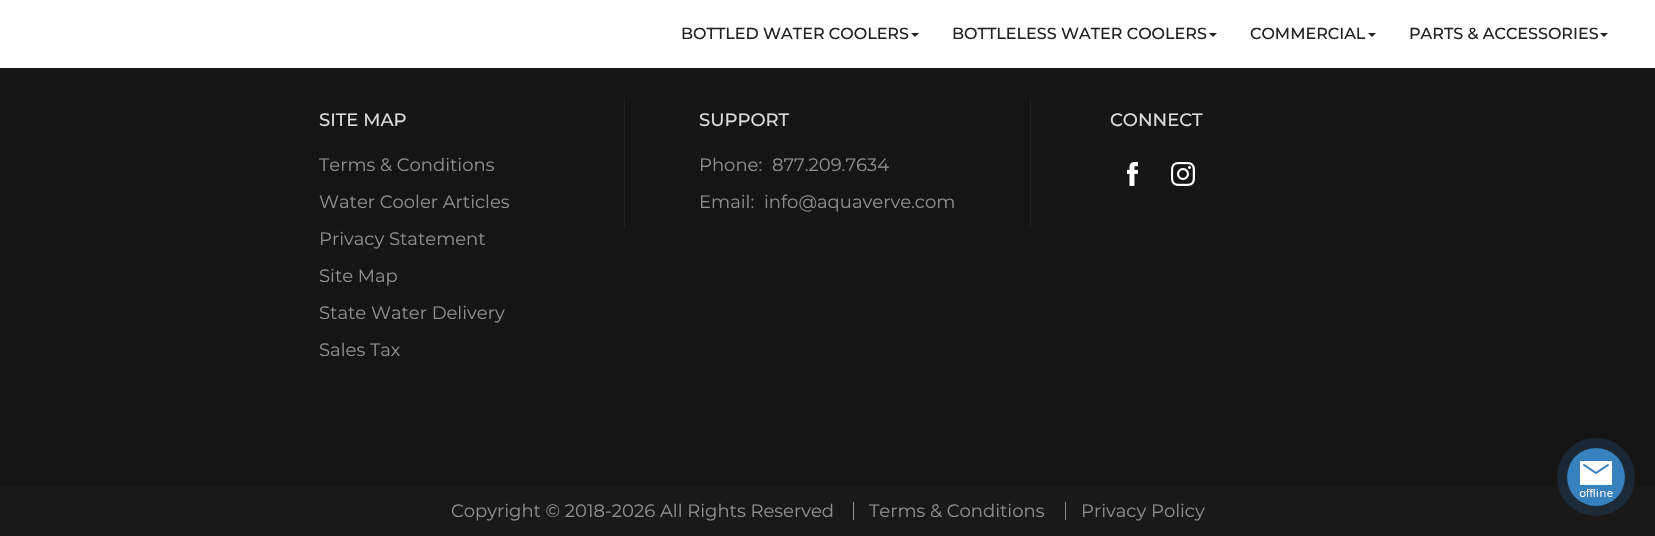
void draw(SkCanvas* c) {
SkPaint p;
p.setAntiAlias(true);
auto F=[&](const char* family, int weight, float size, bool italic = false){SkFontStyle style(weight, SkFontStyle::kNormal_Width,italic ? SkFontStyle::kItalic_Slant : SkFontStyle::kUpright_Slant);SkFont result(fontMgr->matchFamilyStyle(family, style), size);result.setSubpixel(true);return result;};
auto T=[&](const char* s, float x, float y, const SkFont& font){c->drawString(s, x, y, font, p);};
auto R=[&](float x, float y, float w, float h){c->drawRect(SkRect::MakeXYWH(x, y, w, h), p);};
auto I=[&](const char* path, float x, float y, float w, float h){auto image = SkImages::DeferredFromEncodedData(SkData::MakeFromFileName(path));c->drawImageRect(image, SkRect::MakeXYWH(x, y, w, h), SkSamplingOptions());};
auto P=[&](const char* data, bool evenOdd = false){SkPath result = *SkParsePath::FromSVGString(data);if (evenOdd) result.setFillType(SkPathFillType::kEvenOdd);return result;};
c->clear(0xff151515);
p.setColor(0xffffffff);
R(0,0,1655,68);
auto f1 = F("Montserrat",500,16);
p.setColor(0xff222222);
T("BOTTLED WATER COOLERS",681,39,f1);
c->drawPath(P("M911 33h8l-4 4z"),p);
T("BOTTLELESS WATER COOLERS",952,39,f1);
c->drawPath(P("M1209 33h8l-4 4z"),p);
T("COMMERCIAL",1250,39,f1);
c->drawPath(P("M1368 33h8l-4 4z"),p);
T("PARTS & ACCESSORIES",1409,39,f1);
c->drawPath(P("M1600 33h8l-4 4z"),p);
auto f2 = F("Montserrat",500,18);
p.setColor(0xffd9d9d9);
T("SITE MAP",319,126,f2);
auto f3 = F("Montserrat",400,18);
p.setColor(0xff8e8e8e);
T("Terms & Conditions",319,171,f3);
T("Water Cooler Articles",319,208,f3);
T("Privacy Statement",319,245,f3);
T("Site Map",319,282,f3);
T("State Water Delivery",319,319,f3);
T("Sales Tax",319,356,f3);
p.setColor(0xff212121);
R(1030,98,1,130);
R(624,98,1,130);
p.setColor(0xffd9d9d9);
T("SUPPORT",699,126,f2);
p.setColor(0xff8e8e8e);
T("Phone:",699,171,f3);
T("877.209.7634",772,171,f3);
T("Email:",699,208,f3);
T("info@aquaverve.com",764,208,f3);
p.setColor(0xffd9d9d9);
T("CONNECT",1110,126,f2);
I("1.png",1127,162,11,24);
I("2.png",1171,162,24,24);
p.setColor(0xff191919);
R(0,486,1655,50);
p.setColor(0xff8e8e8e);
T("Copyright © 2018-2026 All Rights Reserved",451,517,f3);
R(853,502,1,18);
T("Terms & Conditions",869,517,f3);
R(1065,502,1,18);
T("Privacy Policy",1081,517,f3);
p.setStroke(true);
p.setStrokeWidth(10);
p.setColor(0x332b6cb0);
c->drawCircle(1596,477,34,p);
p.setStroke(false);
p.setColor(0xff3681be);
c->drawCircle(1596,477,29,p);
I("3.png",1570,450,52,52);
}
